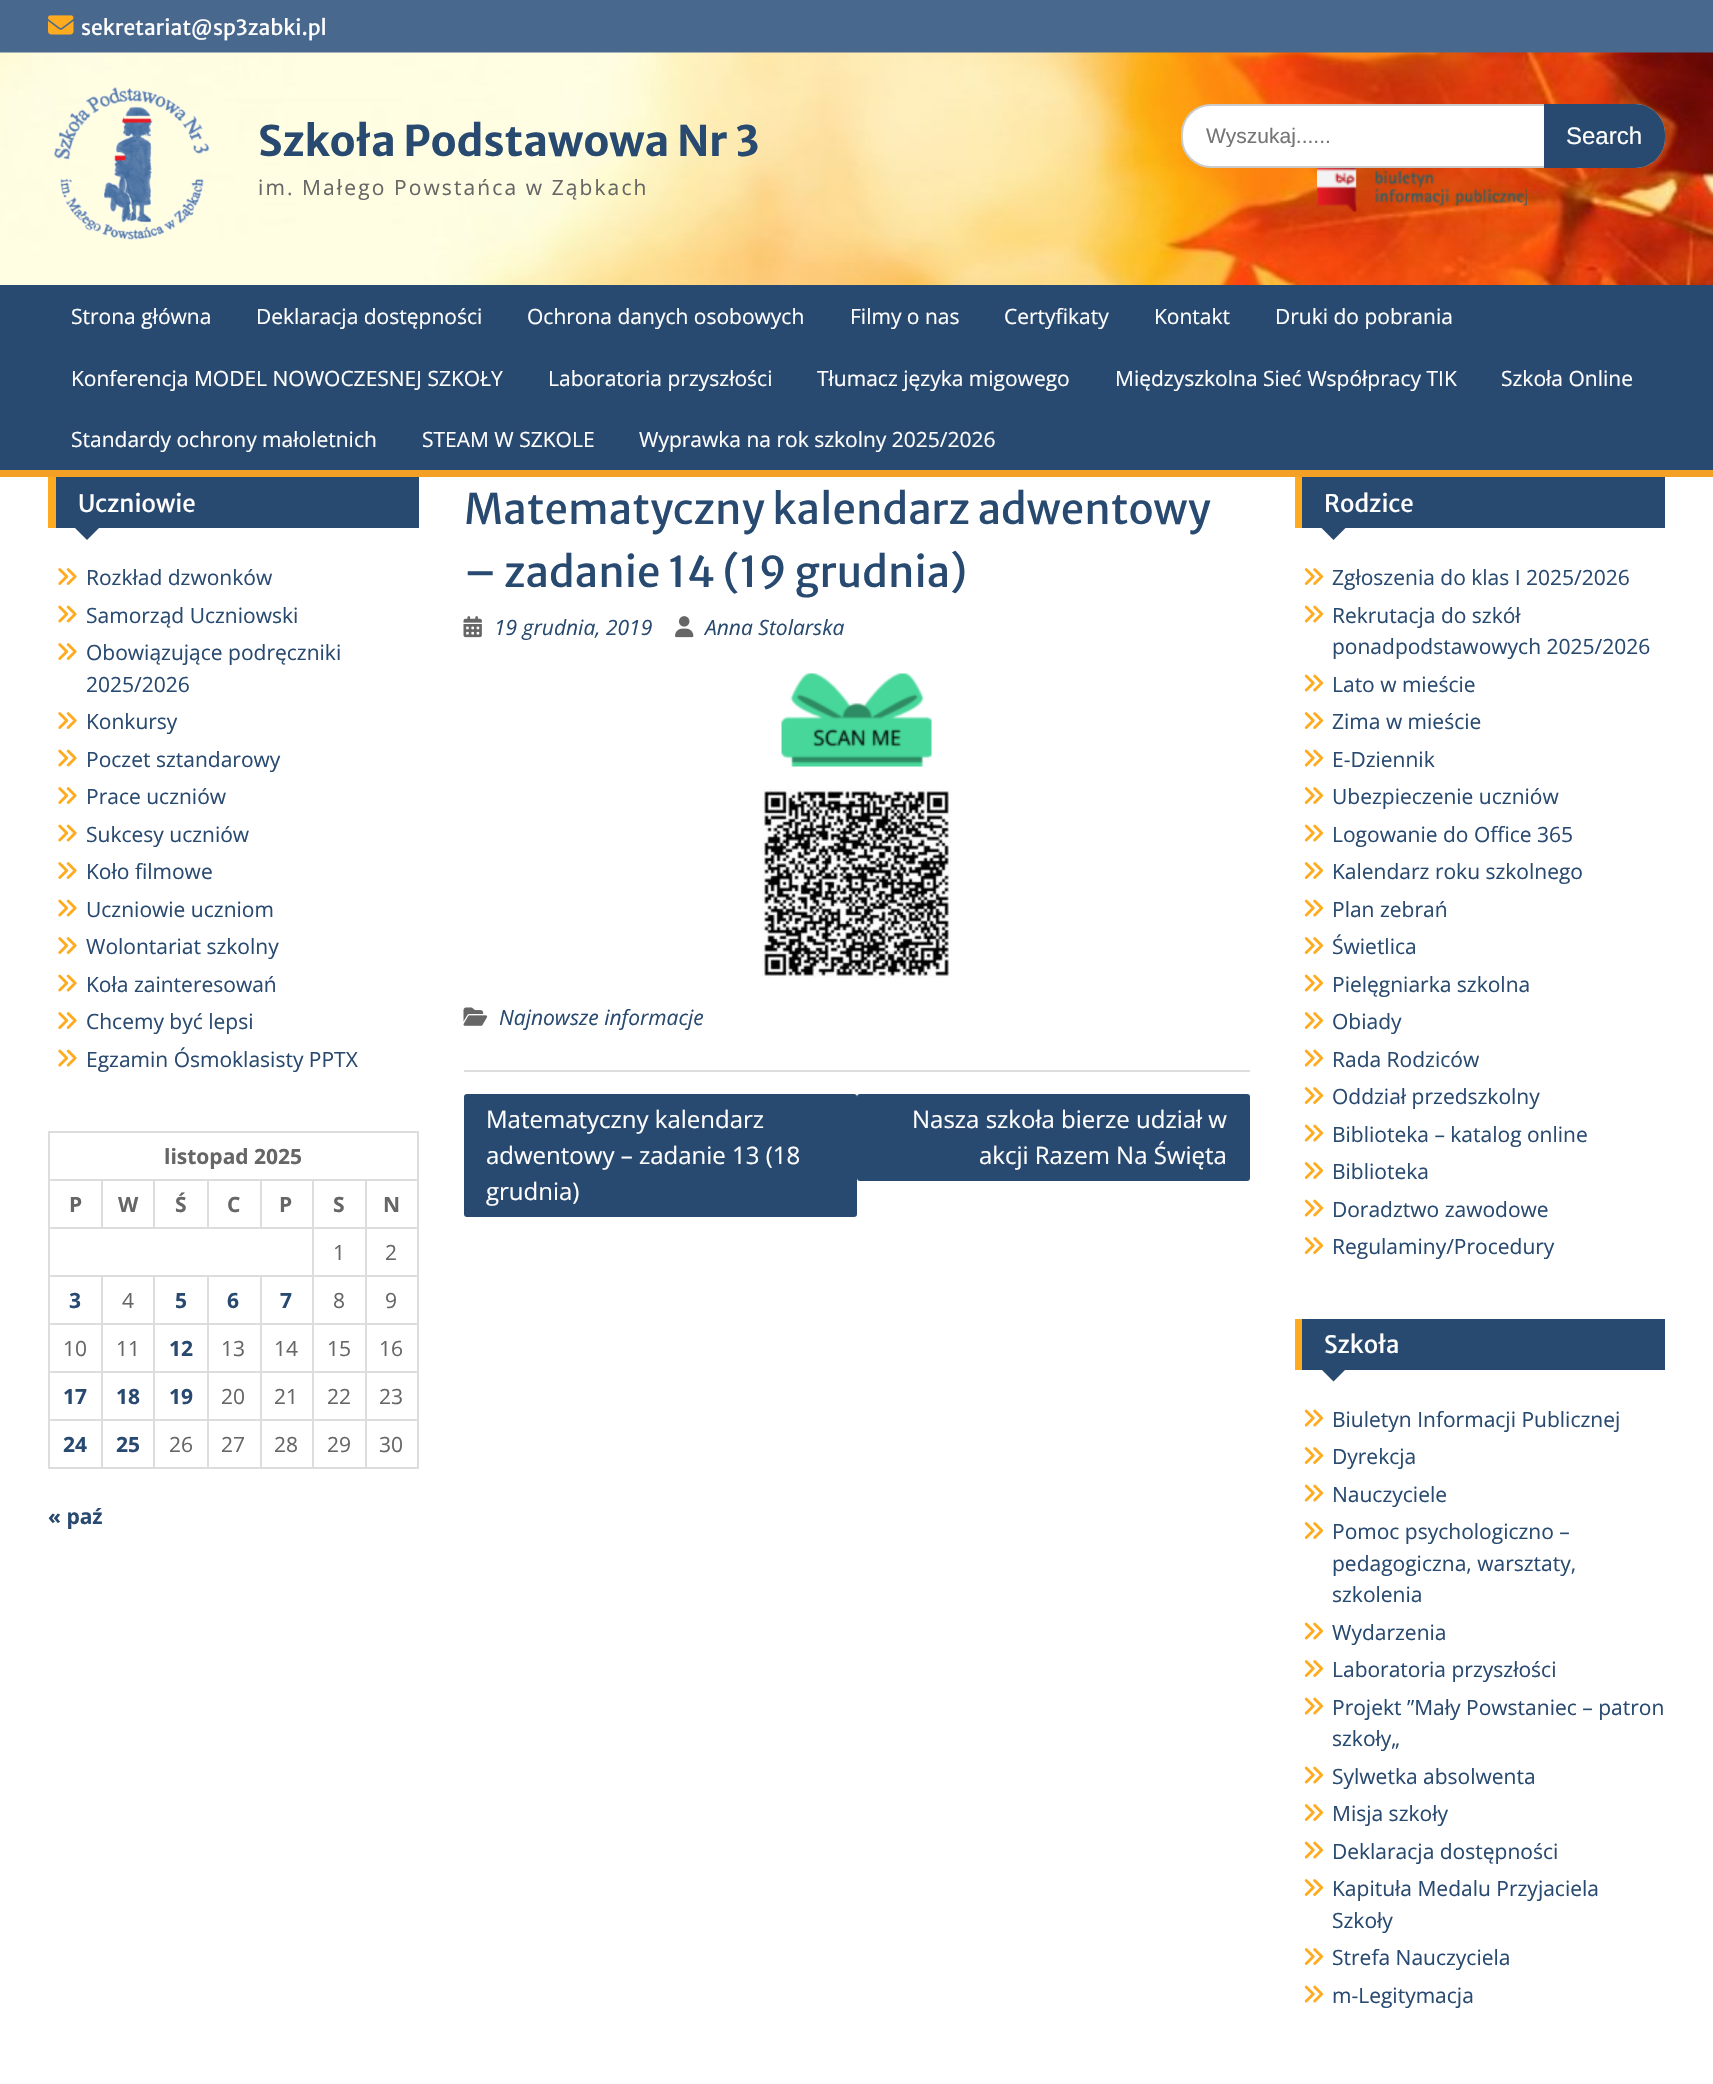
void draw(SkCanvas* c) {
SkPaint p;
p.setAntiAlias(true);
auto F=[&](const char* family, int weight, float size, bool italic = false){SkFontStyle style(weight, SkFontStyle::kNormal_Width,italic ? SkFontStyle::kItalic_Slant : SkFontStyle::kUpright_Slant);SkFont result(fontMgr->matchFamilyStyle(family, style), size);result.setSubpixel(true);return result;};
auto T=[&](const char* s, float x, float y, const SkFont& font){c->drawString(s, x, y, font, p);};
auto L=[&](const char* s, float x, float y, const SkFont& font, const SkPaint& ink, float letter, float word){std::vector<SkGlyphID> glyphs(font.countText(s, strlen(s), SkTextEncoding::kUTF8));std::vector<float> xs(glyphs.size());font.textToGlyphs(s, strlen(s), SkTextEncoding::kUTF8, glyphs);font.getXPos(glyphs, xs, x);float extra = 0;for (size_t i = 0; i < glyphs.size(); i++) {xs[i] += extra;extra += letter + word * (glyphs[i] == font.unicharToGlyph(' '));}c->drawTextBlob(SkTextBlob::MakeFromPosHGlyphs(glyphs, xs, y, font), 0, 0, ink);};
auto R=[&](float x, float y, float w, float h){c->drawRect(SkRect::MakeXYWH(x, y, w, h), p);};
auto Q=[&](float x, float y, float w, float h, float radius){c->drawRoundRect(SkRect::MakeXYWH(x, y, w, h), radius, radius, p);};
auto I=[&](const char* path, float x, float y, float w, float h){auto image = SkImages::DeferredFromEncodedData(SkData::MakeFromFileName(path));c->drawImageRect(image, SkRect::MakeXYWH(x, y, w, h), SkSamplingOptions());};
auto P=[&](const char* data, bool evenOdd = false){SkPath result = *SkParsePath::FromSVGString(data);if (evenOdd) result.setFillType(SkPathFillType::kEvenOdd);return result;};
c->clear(0xffffffff);
p.setColor(0xff49688e);
R(0,0,1713,53);
I("1.png",48,15,26,20);
auto f1 = F("Merriweather Sans",400,21);
p.setColor(0xffffffff);
T("sekretariat@sp3zabki.pl",81,35,f1);
I("2.png",0,52,1713,233);
I("3.png",54,87,156,153);
auto f2 = F("Merriweather Sans",700,42);
p.setColor(0xff294a70);
T("Szkoła Podstawowa Nr 3",258,156,f2);
auto f3 = F("Open Sans",400,21);
p.setColor(0xff666666);
L("im. Małego Powstańca w Ząbkach",258,195,f3,p,2.1,0);
p.setColor(0xffffffff);
c->drawRoundRect(SkRect::MakeXYWH(1182,105,482,62),29,29,p);
p.setStroke(true);
p.setStrokeWidth(2);
p.setColor(0xffcccccc);
c->drawRoundRect(SkRect::MakeXYWH(1182,105,482,62),29,29,p);
c->save();
c->clipRect(SkRect::MakeXYWH(1206,123,330,24));
auto f4 = F("Liberation Sans",400,21);
p.setStroke(false);
p.setColor(0xff757575);
T("Wyszukaj......",1206,143,f4);
c->restore();
p.setColor(0xff294a70);
c->drawPath(P("M1544 104h91c16.5 0 30 13.5 30 30v4c0 16.5-13.5 30-30 30h-91z"),p);
auto f5 = F("Liberation Sans",400,24);
p.setColor(0xffffffff);
T("Search",1566,144,f5);
I("4.png",1317,168,210,44);
p.setColor(0xff294a70);
R(0,285,1713,185);
p.setColor(0xfff4a024);
R(0,470,1713,7);
p.setColor(0xffffffff);
T("Strona główna",71,324,f3);
T("Deklaracja dostępności",256,324,f3);
T("Ochrona danych osobowych",527,324,f3);
T("Filmy o nas",850,324,f3);
T("Certyfikaty",1004,324,f3);
T("Kontakt",1154,324,f3);
T("Druki do pobrania",1275,324,f3);
T("Konferencja MODEL NOWOCZESNEJ SZKOŁY",71,386,f3);
T("Laboratoria przyszłości",548,386,f3);
T("Tłumacz języka migowego",817,386,f3);
T("Międzyszkolna Sieć Współpracy TIK",1115,386,f3);
T("Szkoła Online",1501,386,f3);
T("Standardy ochrony małoletnich",71,447,f3);
T("STEAM W SZKOLE",422,447,f3);
T("Wyprawka na rok szkolny 2025/2026",639,447,f3);
p.setColor(0xff294a70);
R(56,477,363,51);
p.setColor(0xffffab1f);
R(48,477,8,51);
auto f6 = F("Merriweather Sans",400,24);
p.setColor(0xffffffff);
T("Uczniowie",78,512,f6);
p.setColor(0xff294a70);
c->drawPath(P("M73.5 526.5h27l-13.5 13.5z"),p);
I("5.png",58,568,19,17);
T("Rozkład dzwonków",86,585,f3);
I("6.png",58,605,19,18);
T("Samorząd Uczniowski",86,623,f3);
I("5.png",58,643,19,17);
T("Obowiązujące podręczniki",86,660,f3);
T("2025/2026",86,692,f3);
I("5.png",58,712,19,17);
T("Konkursy",86,729,f3);
I("6.png",58,749,19,18);
T("Poczet sztandarowy",86,767,f3);
I("5.png",58,787,19,17);
T("Prace uczniów",86,804,f3);
I("6.png",58,824,19,18);
T("Sukcesy uczniów",86,842,f3);
I("5.png",58,862,19,17);
T("Koło filmowe",86,879,f3);
I("6.png",58,899,19,18);
T("Uczniowie uczniom",86,917,f3);
I("5.png",58,937,19,17);
T("Wolontariat szkolny",86,954,f3);
I("6.png",58,974,19,18);
T("Koła zainteresowań",86,992,f3);
I("5.png",58,1012,19,17);
T("Chcemy być lepsi",86,1029,f3);
I("6.png",58,1049,19,18);
T("Egzamin Ósmoklasisty PPTX",86,1067,f3);
p.setColor(0xffdddddd);
R(48,1131,371,2);
R(417,1131,2,48);
R(48,1131,2,48);
auto f7 = F("Open Sans",700,21);
p.setColor(0xff666666);
T("listopad 2025",164,1164,f7);
p.setColor(0xffdddddd);
R(365,1179,54,2);
R(365,1227,54,2);
R(365,1275,54,2);
R(365,1323,54,2);
R(365,1371,54,2);
R(365,1419,54,2);
R(417,1419,2,50);
R(365,1467,54,2);
R(365,1419,2,50);
R(312,1419,54,2);
R(365,1371,2,50);
R(312,1371,54,2);
R(365,1323,2,50);
R(312,1323,54,2);
R(365,1275,2,50);
R(312,1275,54,2);
R(365,1227,2,50);
R(312,1227,54,2);
R(365,1179,2,50);
R(312,1179,54,2);
R(312,1467,54,2);
R(312,1419,2,50);
R(260,1419,54,2);
R(312,1371,2,50);
R(260,1371,54,2);
R(312,1323,2,50);
R(260,1323,54,2);
R(312,1275,2,50);
R(260,1275,54,2);
R(312,1227,2,50);
R(48,1227,266,2);
R(312,1179,2,50);
R(260,1179,54,2);
R(260,1179,2,50);
R(207,1179,54,2);
R(207,1179,2,50);
R(153,1179,56,2);
R(153,1179,2,50);
R(101,1179,54,2);
R(101,1179,2,50);
R(48,1179,54,2);
R(260,1467,54,2);
R(260,1419,2,50);
R(207,1419,54,2);
R(260,1371,2,50);
R(207,1371,54,2);
R(260,1323,2,50);
R(207,1323,54,2);
R(260,1275,2,50);
R(207,1275,54,2);
R(207,1467,54,2);
R(207,1419,2,50);
R(153,1419,56,2);
R(207,1371,2,50);
R(153,1371,56,2);
R(207,1323,2,50);
R(153,1323,56,2);
R(207,1275,2,50);
R(153,1275,56,2);
R(153,1467,56,2);
R(153,1419,2,50);
R(101,1419,54,2);
R(153,1371,2,50);
R(101,1371,54,2);
R(153,1323,2,50);
R(101,1323,54,2);
R(153,1275,2,50);
R(101,1275,54,2);
R(101,1467,54,2);
R(101,1419,2,50);
R(48,1419,54,2);
R(101,1371,2,50);
R(48,1371,54,2);
R(101,1323,2,50);
R(48,1323,54,2);
R(101,1275,2,50);
R(48,1275,54,2);
R(48,1467,54,2);
R(48,1419,2,50);
R(48,1371,2,50);
R(48,1323,2,50);
R(48,1275,2,50);
R(48,1227,2,50);
R(48,1179,2,50);
p.setColor(0xff666666);
T("P",69,1212,f7);
T("W",118,1212,f7);
T("Ś",175,1212,f7);
T("C",227,1212,f7);
T("P",279,1212,f7);
T("S",333,1212,f7);
p.setColor(0xffdddddd);
R(417,1371,2,50);
R(417,1323,2,50);
R(417,1275,2,50);
R(417,1227,2,50);
R(417,1179,2,50);
p.setColor(0xff666666);
T("N",383,1212,f7);
T("1",333,1260,f3);
T("2",385,1260,f3);
p.setColor(0xff294a70);
T("3",69,1308,f7);
p.setColor(0xff666666);
T("4",122,1308,f3);
p.setColor(0xff294a70);
T("5",175,1308,f7);
T("6",227,1308,f7);
T("7",280,1308,f7);
p.setColor(0xff666666);
T("8",333,1308,f3);
T("9",385,1308,f3);
T("10",63,1356,f3);
T("11",116,1356,f3);
p.setColor(0xff294a70);
T("12",169,1356,f7);
p.setColor(0xff666666);
T("13",221,1356,f3);
T("14",274,1356,f3);
T("15",327,1356,f3);
T("16",379,1356,f3);
p.setColor(0xff294a70);
T("17",63,1404,f7);
T("18",116,1404,f7);
T("19",169,1404,f7);
p.setColor(0xff666666);
T("20",221,1404,f3);
T("21",274,1404,f3);
T("22",327,1404,f3);
T("23",379,1404,f3);
p.setColor(0xff294a70);
T("24",63,1452,f7);
T("25",116,1452,f7);
p.setColor(0xff666666);
T("26",169,1452,f3);
T("27",221,1452,f3);
T("28",274,1452,f3);
T("29",327,1452,f3);
T("30",379,1452,f3);
p.setColor(0xff294a70);
T("« paź",48,1524,f7);
p.setColor(0xffdddddd);
R(464,1070,786,2);
auto f8 = F("Merriweather Sans",400,42);
p.setColor(0xff294a70);
T("Matematyczny kalendarz adwentowy",464,524,f8);
T("– zadanie 14 (19 grudnia)",464,587,f8);
I("7.png",463,616,19,22);
auto f9 = F("Open Sans",400,21,true);
T("19 grudnia, 2019",494,635,f9);
I("8.png",675,616,19,22);
T("Anna Stolarska",705,635,f9);
I("9.png",781,673,151,94);
I("10.png",762,789,189,189);
I("11.png",463,1007,25,19);
T("Najnowsze informacje",499,1025,f9);
Q(464,1094,393,123,3);
auto f10 = F("Open Sans",400,24);
p.setColor(0xffffffff);
T("Matematyczny kalendarz",486,1128,f10);
T("adwentowy – zadanie 13 (18",486,1164,f10);
T("grudnia)",486,1200,f10);
p.setColor(0xff294a70);
Q(857,1094,393,87,3);
p.setColor(0xffffffff);
T("Nasza szkoła bierze udział w",912,1128,f10);
T("akcji Razem Na Święta",979,1164,f10);
p.setColor(0xff294a70);
R(1302,477,363,51);
p.setColor(0xffffab1f);
R(1295,477,7,51);
p.setColor(0xffffffff);
T("Rodzice",1324,512,f6);
p.setColor(0xff294a70);
c->drawPath(P("M1320 526.5h27l-13.5 13.5z"),p);
I("12.png",1304,568,20,17);
T("Zgłoszenia do klas I 2025/2026",1332,585,f3);
I("13.png",1304,605,20,18);
T("Rekrutacja do szkół",1332,623,f3);
T("ponadpodstawowych 2025/2026",1332,654,f3);
I("13.png",1304,674,20,18);
T("Lato w mieście",1332,692,f3);
I("12.png",1304,712,20,17);
T("Zima w mieście",1332,729,f3);
I("13.png",1304,749,20,18);
T("E-Dziennik",1332,767,f3);
I("12.png",1304,787,20,17);
T("Ubezpieczenie uczniów",1332,804,f3);
I("13.png",1304,824,20,18);
T("Logowanie do Office 365",1332,842,f3);
I("12.png",1304,862,20,17);
T("Kalendarz roku szkolnego",1332,879,f3);
I("13.png",1304,899,20,18);
T("Plan zebrań",1332,917,f3);
I("12.png",1304,937,20,17);
T("Świetlica",1332,954,f3);
I("13.png",1304,974,20,18);
T("Pielęgniarka szkolna",1332,992,f3);
I("12.png",1304,1012,20,17);
T("Obiady",1332,1029,f3);
I("13.png",1304,1049,20,18);
T("Rada Rodziców",1332,1067,f3);
I("12.png",1304,1087,20,17);
T("Oddział przedszkolny",1332,1104,f3);
I("13.png",1304,1124,20,18);
T("Biblioteka – katalog online",1332,1142,f3);
I("12.png",1304,1162,20,17);
T("Biblioteka",1332,1179,f3);
I("13.png",1304,1199,20,18);
T("Doradztwo zawodowe",1332,1217,f3);
I("12.png",1304,1237,20,17);
T("Regulaminy/Procedury",1332,1254,f3);
R(1302,1319,363,51);
p.setColor(0xffffab1f);
R(1295,1319,7,51);
p.setColor(0xffffffff);
T("Szkoła",1324,1353,f6);
p.setColor(0xff294a70);
c->drawPath(P("M1320 1368h27l-13.5 13.5z"),p);
I("13.png",1304,1409,20,18);
T("Biuletyn Informacji Publicznej",1332,1427,f3);
I("12.png",1304,1447,20,17);
T("Dyrekcja",1332,1464,f3);
I("13.png",1304,1484,20,18);
T("Nauczyciele",1332,1502,f3);
I("12.png",1304,1522,20,17);
T("Pomoc psychologiczno –",1332,1539,f3);
T("pedagogiczna, warsztaty,",1332,1571,f3);
T("szkolenia",1332,1602,f3);
I("13.png",1304,1622,20,18);
T("Wydarzenia",1332,1640,f3);
I("12.png",1304,1660,20,17);
T("Laboratoria przyszłości",1332,1677,f3);
I("13.png",1304,1697,20,18);
T("Projekt ”Mały Powstaniec – patron",1332,1715,f3);
T("szkoły„",1332,1746,f3);
I("13.png",1304,1766,20,18);
T("Sylwetka absolwenta",1332,1784,f3);
I("12.png",1304,1804,20,17);
T("Misja szkoły",1332,1821,f3);
I("13.png",1304,1841,20,18);
T("Deklaracja dostępności",1332,1859,f3);
I("12.png",1304,1879,20,17);
T("Kapituła Medalu Przyjaciela",1332,1896,f3);
T("Szkoły",1332,1928,f3);
I("12.png",1304,1948,20,17);
T("Strefa Nauczyciela",1332,1965,f3);
I("13.png",1304,1985,20,18);
T("m-Legitymacja",1332,2003,f3);
}
